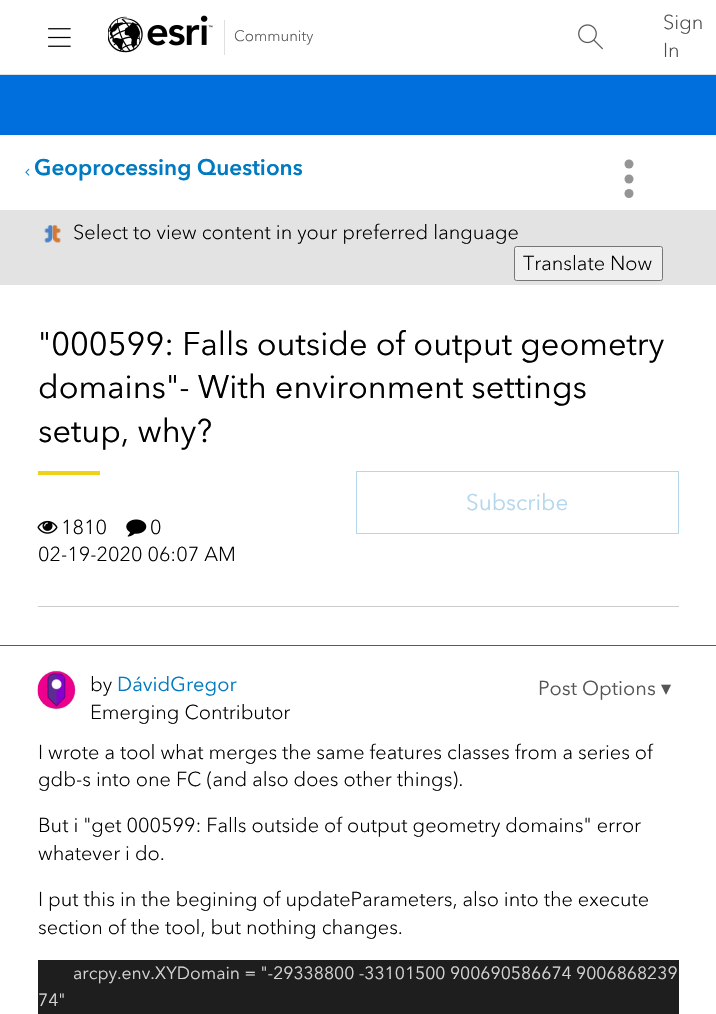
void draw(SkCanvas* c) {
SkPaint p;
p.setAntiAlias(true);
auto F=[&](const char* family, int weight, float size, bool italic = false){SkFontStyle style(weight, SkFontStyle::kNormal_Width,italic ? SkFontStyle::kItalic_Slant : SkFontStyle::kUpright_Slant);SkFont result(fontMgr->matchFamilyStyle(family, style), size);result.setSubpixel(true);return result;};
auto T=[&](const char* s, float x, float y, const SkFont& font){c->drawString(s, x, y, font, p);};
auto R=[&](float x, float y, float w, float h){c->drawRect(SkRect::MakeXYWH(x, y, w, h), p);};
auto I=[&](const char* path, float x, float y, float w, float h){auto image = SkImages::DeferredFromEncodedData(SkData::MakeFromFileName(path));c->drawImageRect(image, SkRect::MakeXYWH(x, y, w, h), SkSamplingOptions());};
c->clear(0xff006fde);
p.setColor(0xffffffff);
R(0,0,716,74);
p.setColor(0xffe0e0e0);
R(0,74,716,1);
I("1.png",48,28,23,19);
I("2.png",108,15,105,38);
R(224,20,1,35);
auto f1 = F("Avenir Next",300,15);
p.setColor(0xff555555);
T("Community",234,41,f1);
I("3.png",578,24,25,26);
auto f2 = F("Avenir Next",300,20);
p.setColor(0xff4c4c4c);
T("Sign",663,29,f2);
T("In",663,57,f2);
p.setColor(0xffffffff);
R(0,135,716,75);
I("4.png",25,168,5,8);
auto f3 = F("Avenir Next",700,22.5);
p.setColor(0xff007ac2);
T("Geoprocessing Questions",34,175,f3);
p.setColor(0xff959595);
c->drawCircle(629,164,4.5,p);
c->drawCircle(629,179,4.5,p);
c->drawCircle(629,193.5,4.5,p);
p.setColor(0xffe3e3e3);
R(0,210,716,75);
I("5.png",44,225,17,18);
p.setColor(0xff000000);
T("Select to view content in your preferred language",73,239,f2);
p.setColor(0xffefefef);
c->drawRoundRect(SkRect::MakeXYWH(514.5,246.5,148,34),2,2,p);
p.setStroke(true);
p.setStrokeWidth(1);
p.setColor(0xff767676);
c->drawRoundRect(SkRect::MakeXYWH(514.5,246.5,148,34),2,2,p);
p.setStroke(false);
p.setColor(0xff000000);
T("Translate Now",523,270,f2);
p.setColor(0xffffffff);
R(0,285,716,360);
auto f4 = F("Avenir Next",400,32.5);
p.setColor(0xff000000);
T("\"000599: Falls outside of output geometry",38,355,f4);
T("domains\"- With environment settings",38,398,f4);
T("setup, why?",38,442,f4);
p.setColor(0xffedd317);
R(38,471,62,4);
p.setStroke(true);
p.setColor(0xffb3d7ed);
c->drawRect(SkRect::MakeXYWH(356.5,471.5,322,62),p);
auto f5 = F("Avenir Next",400,22.5);
p.setStroke(false);
T("Subscribe",466,510,f5);
I("6.png",37,520,21,14);
p.setColor(0xff000000);
T("1810",61,534,f2);
I("7.png",126,519,21,18);
T("0",150,534,f2);
T("02-19-2020 06:07 AM",38,561,f2);
p.setColor(0xffcccccc);
R(38,606,641,1);
p.setColor(0xffffffff);
R(0,646,716,368);
p.setColor(0xff959595);
p.setMaskFilter(SkMaskFilter::MakeBlur(kNormal_SkBlurStyle, .5));
c->drawRoundRect(SkRect::MakeXYWH(38,671,37,38),18.5,18.5,p);
p.setMaskFilter(nullptr);
I("8.png",37,671,38,38);
p.setColor(0xff000000);
T("by",90,691,f2);
auto f6 = F("Avenir Next",400,20);
p.setColor(0xff007ac2);
T("DávidGregor",117,691,f6);
p.setColor(0xff000000);
T("Emerging Contributor",90,719,f2);
p.setColor(0xff555555);
T("Post Options",538,695,f6);
auto f7 = F("DejaVu Sans",400,20);
T("▾",661,695,f7);
p.setColor(0xff000000);
T("I wrote a tool what merges the same features classes from a series of",38,759,f2);
T("gdb-s into one FC (and also does other things).",38,786,f2);
T("But i \"get 000599: Falls outside of output geometry domains\" error",38,832,f2);
T("whatever i do.",38,860,f2);
T("I put this in the begining of updateParameters, also into the execute",38,906,f2);
T("section of the tool, but nothing changes.",38,934,f2);
p.setColor(0xff1e1e1e);
R(38,960,641,54);
auto f8 = F("Avenir Next",400,17.5);
p.setColor(0xffd4d4d4);
T("arcpy.env.XYDomain = \"-29338800 -33101500 900690586674 9006868239",73,979,f8);
T("74\"",38,1006,f8);
}
